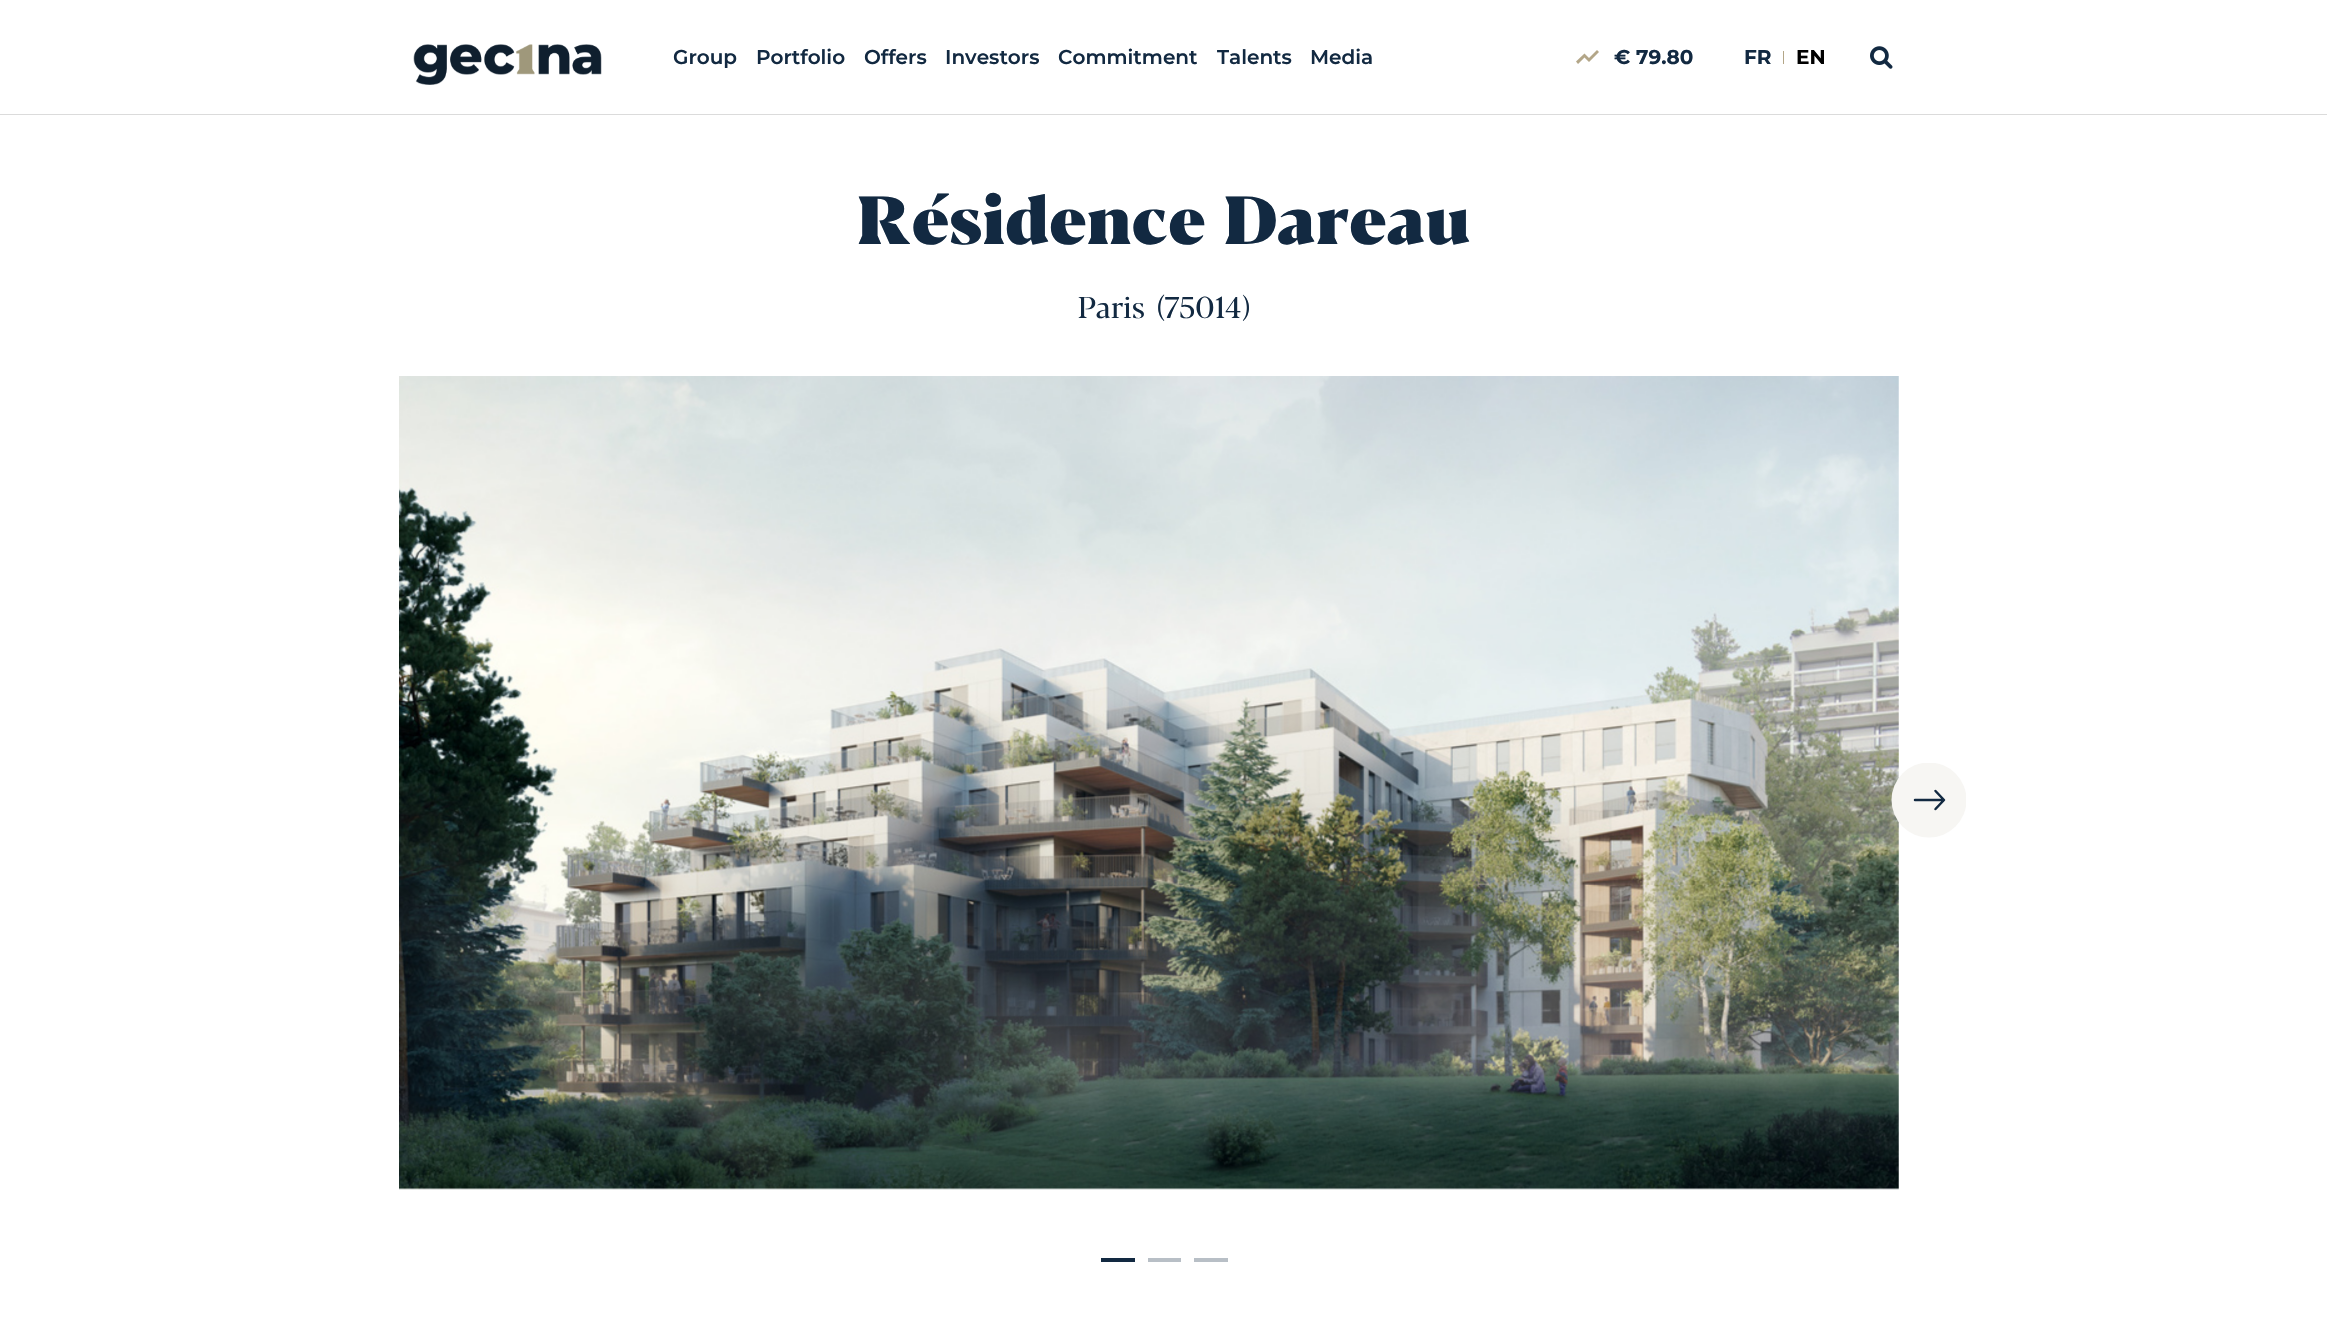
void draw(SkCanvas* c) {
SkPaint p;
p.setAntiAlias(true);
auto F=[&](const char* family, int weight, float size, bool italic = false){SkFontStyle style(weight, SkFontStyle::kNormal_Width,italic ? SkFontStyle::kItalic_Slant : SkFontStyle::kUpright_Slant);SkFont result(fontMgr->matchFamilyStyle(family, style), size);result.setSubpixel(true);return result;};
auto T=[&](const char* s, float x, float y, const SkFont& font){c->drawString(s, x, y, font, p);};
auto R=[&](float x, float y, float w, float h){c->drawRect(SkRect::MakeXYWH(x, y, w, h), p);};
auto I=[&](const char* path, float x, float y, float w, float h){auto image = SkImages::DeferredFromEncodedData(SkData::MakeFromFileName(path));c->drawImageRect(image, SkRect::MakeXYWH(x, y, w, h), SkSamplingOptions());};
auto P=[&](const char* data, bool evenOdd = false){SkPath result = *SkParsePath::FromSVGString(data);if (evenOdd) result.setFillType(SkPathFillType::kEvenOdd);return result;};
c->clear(0xffffffff);
p.setColor(0xffdbdbdb);
c->drawPath(P("M0 114v1h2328v-114v113z"),p);
I("1.png",413,44,189,41);
auto f1 = F("Montserrat",600,20);
p.setColor(0xff122941);
T("Group",673,64,f1);
T("Portfolio",756,64,f1);
T("Offers",864,64,f1);
T("Investors",945,64,f1);
T("Commitment",1058,64,f1);
T("Talents",1217,64,f1);
T("Media",1310,64,f1);
p.setColor(0xffb3a688);
c->drawPath(P("M1584.5 57.5l-6.5 6.5l-2-2.5l8.5-8l4.5 4.5l8-8l2 2l-10 10z"),p);
auto f2 = F("Montserrat",700,20);
p.setColor(0xff122941);
T("€ 79.80",1614,64,f2);
T("FR",1744,64,f2);
p.setColor(0xffb3a688);
R(1783,51,1,13);
p.setColor(0xff000000);
T("EN",1796,64,f2);
I("2.png",1870,46,23,23);
auto f3 = F("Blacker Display",900,67.5);
p.setColor(0xff122941);
T("Résidence Dareau",857,244,f3);
auto f4 = F("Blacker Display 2",900,30);
T("Paris",1078,318,f4);
T("(75014)",1156,318,f4);
I("3.png",399,376,1500,814);
c->save();
c->clipRect(SkRect::MakeXYWH(1891,763,75,75));
p.setColor(0xfff7f6f3);
c->drawCircle(1929,800,37.5,p);
c->restore();
p.setStroke(true);
p.setStrokeWidth(2.5);
p.setStrokeCap(SkPaint::kRound_Cap);
p.setStrokeJoin(SkPaint::kRound_Join);
p.setColor(0xff122941);
c->drawPath(P("M1942 800h-27m20.5-9l8.5 9l-8.5 9"),p);
p.setStroke(false);
R(1101,1258,34,4);
p.setColor(0xffb8bfc6);
R(1148,1258,33,4);
R(1194,1258,34,4);
}
